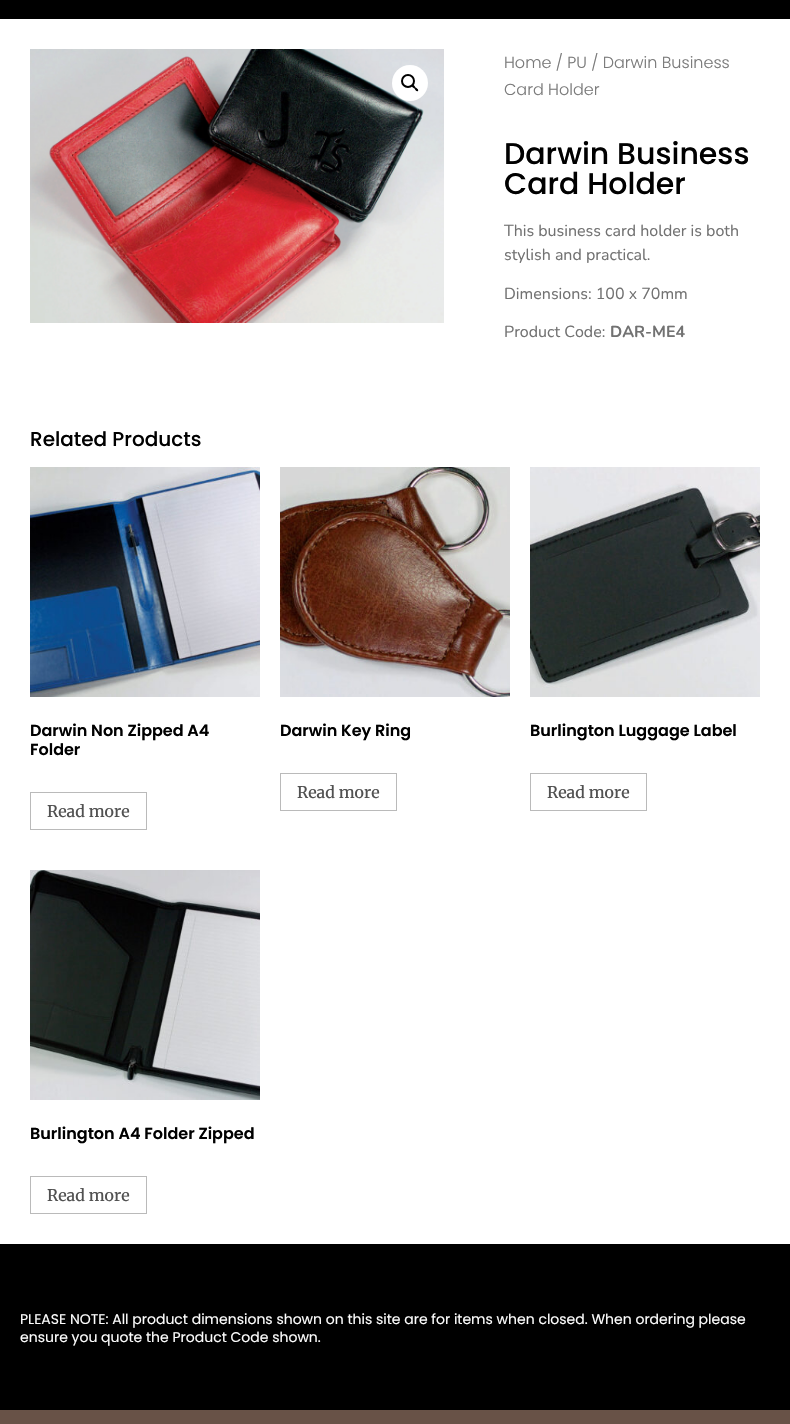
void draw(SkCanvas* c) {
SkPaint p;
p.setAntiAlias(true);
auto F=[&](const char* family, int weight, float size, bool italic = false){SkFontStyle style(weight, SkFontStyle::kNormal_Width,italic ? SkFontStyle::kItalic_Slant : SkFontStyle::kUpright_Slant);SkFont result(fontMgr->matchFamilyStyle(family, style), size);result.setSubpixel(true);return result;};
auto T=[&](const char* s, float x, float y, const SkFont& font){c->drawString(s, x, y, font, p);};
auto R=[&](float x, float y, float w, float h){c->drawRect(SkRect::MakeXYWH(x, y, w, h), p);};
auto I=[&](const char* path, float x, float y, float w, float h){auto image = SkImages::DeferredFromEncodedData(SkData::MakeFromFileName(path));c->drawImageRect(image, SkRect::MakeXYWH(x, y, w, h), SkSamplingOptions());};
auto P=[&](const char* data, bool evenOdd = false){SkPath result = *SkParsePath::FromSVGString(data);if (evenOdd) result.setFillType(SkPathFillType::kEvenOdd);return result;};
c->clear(0xffffffff);
p.setColor(0xff000000);
R(0,0,790,19);
I("1.png",30,49,414,274);
p.setColor(0xffffffff);
c->drawCircle(410,83,18,p);
p.setStroke(true);
p.setStrokeWidth(2);
p.setColor(0xff000000);
c->drawCircle(408,81,6,p);
p.setStroke(false);
c->drawPath(P("M412 85c1.5-1 3 1.5 3.5 2.5c1 .5 3.5 2 2.5 3.5c-1.5 1-3-1.5-3.5-2.5c-1-.5-3.5-2-2.5-3.5z"),p);
auto f1 = F("Poppins",300,16);
p.setColor(0xff7a7a7a);
T("Home / PU / Darwin Business",504,68,f1);
T("Card Holder",504,95,f1);
auto f2 = F("Poppins",500,30);
p.setColor(0xff000000);
T("Darwin Business",504,164,f2);
T("Card Holder",504,194,f2);
auto f3 = F("Nunito",400,16);
p.setColor(0xff727272);
T("This business card holder is both",504,236,f3);
T("stylish and practical.",504,260,f3);
T("Dimensions: 100 x 70mm",504,299,f3);
T("Product Code:",504,337,f3);
auto f4 = F("Nunito",700,16);
T("DAR-ME4",610,337,f4);
auto f5 = F("Poppins",500,20);
p.setColor(0xff000000);
T("Related Products",30,446,f5);
I("2.png",30,467,230,230);
auto f6 = F("Poppins",600,16);
T("Darwin Non Zipped A4",30,736,f6);
T("Folder",30,755,f6);
p.setStroke(true);
p.setStrokeWidth(1);
p.setColor(0xffbababa);
c->drawRect(SkRect::MakeXYWH(30.5,792.5,116,37),p);
auto f7 = F("Merriweather",500,16);
p.setStroke(false);
p.setColor(0xff515151);
T("Read more",47,817,f7);
I("3.png",280,467,230,230);
p.setColor(0xff000000);
T("Darwin Key Ring",280,736,f6);
p.setStroke(true);
p.setColor(0xffbababa);
c->drawRect(SkRect::MakeXYWH(280.5,773.5,116,37),p);
p.setStroke(false);
p.setColor(0xff515151);
T("Read more",297,798,f7);
I("4.png",530,467,230,230);
p.setColor(0xff000000);
T("Burlington Luggage Label",530,736,f6);
p.setStroke(true);
p.setColor(0xffbababa);
c->drawRect(SkRect::MakeXYWH(530.5,773.5,116,37),p);
p.setStroke(false);
p.setColor(0xff515151);
T("Read more",547,798,f7);
I("5.png",30,870,230,230);
p.setColor(0xff000000);
T("Burlington A4 Folder Zipped",30,1139,f6);
p.setStroke(true);
p.setColor(0xffbababa);
c->drawRect(SkRect::MakeXYWH(30.5,1176.5,116,37),p);
p.setStroke(false);
p.setColor(0xff515151);
T("Read more",47,1201,f7);
p.setColor(0xff000000);
R(0,1244,790,166);
auto f8 = F("Poppins",400,14);
p.setColor(0xfffdfdfd);
T("PLEASE NOTE: All product dimensions shown on this site are for items when closed. When ordering please",20,1324,f8);
T("ensure you quote the Product Code shown.",20,1342,f8);
p.setColor(0xff685247);
R(0,1410,790,14);
}
